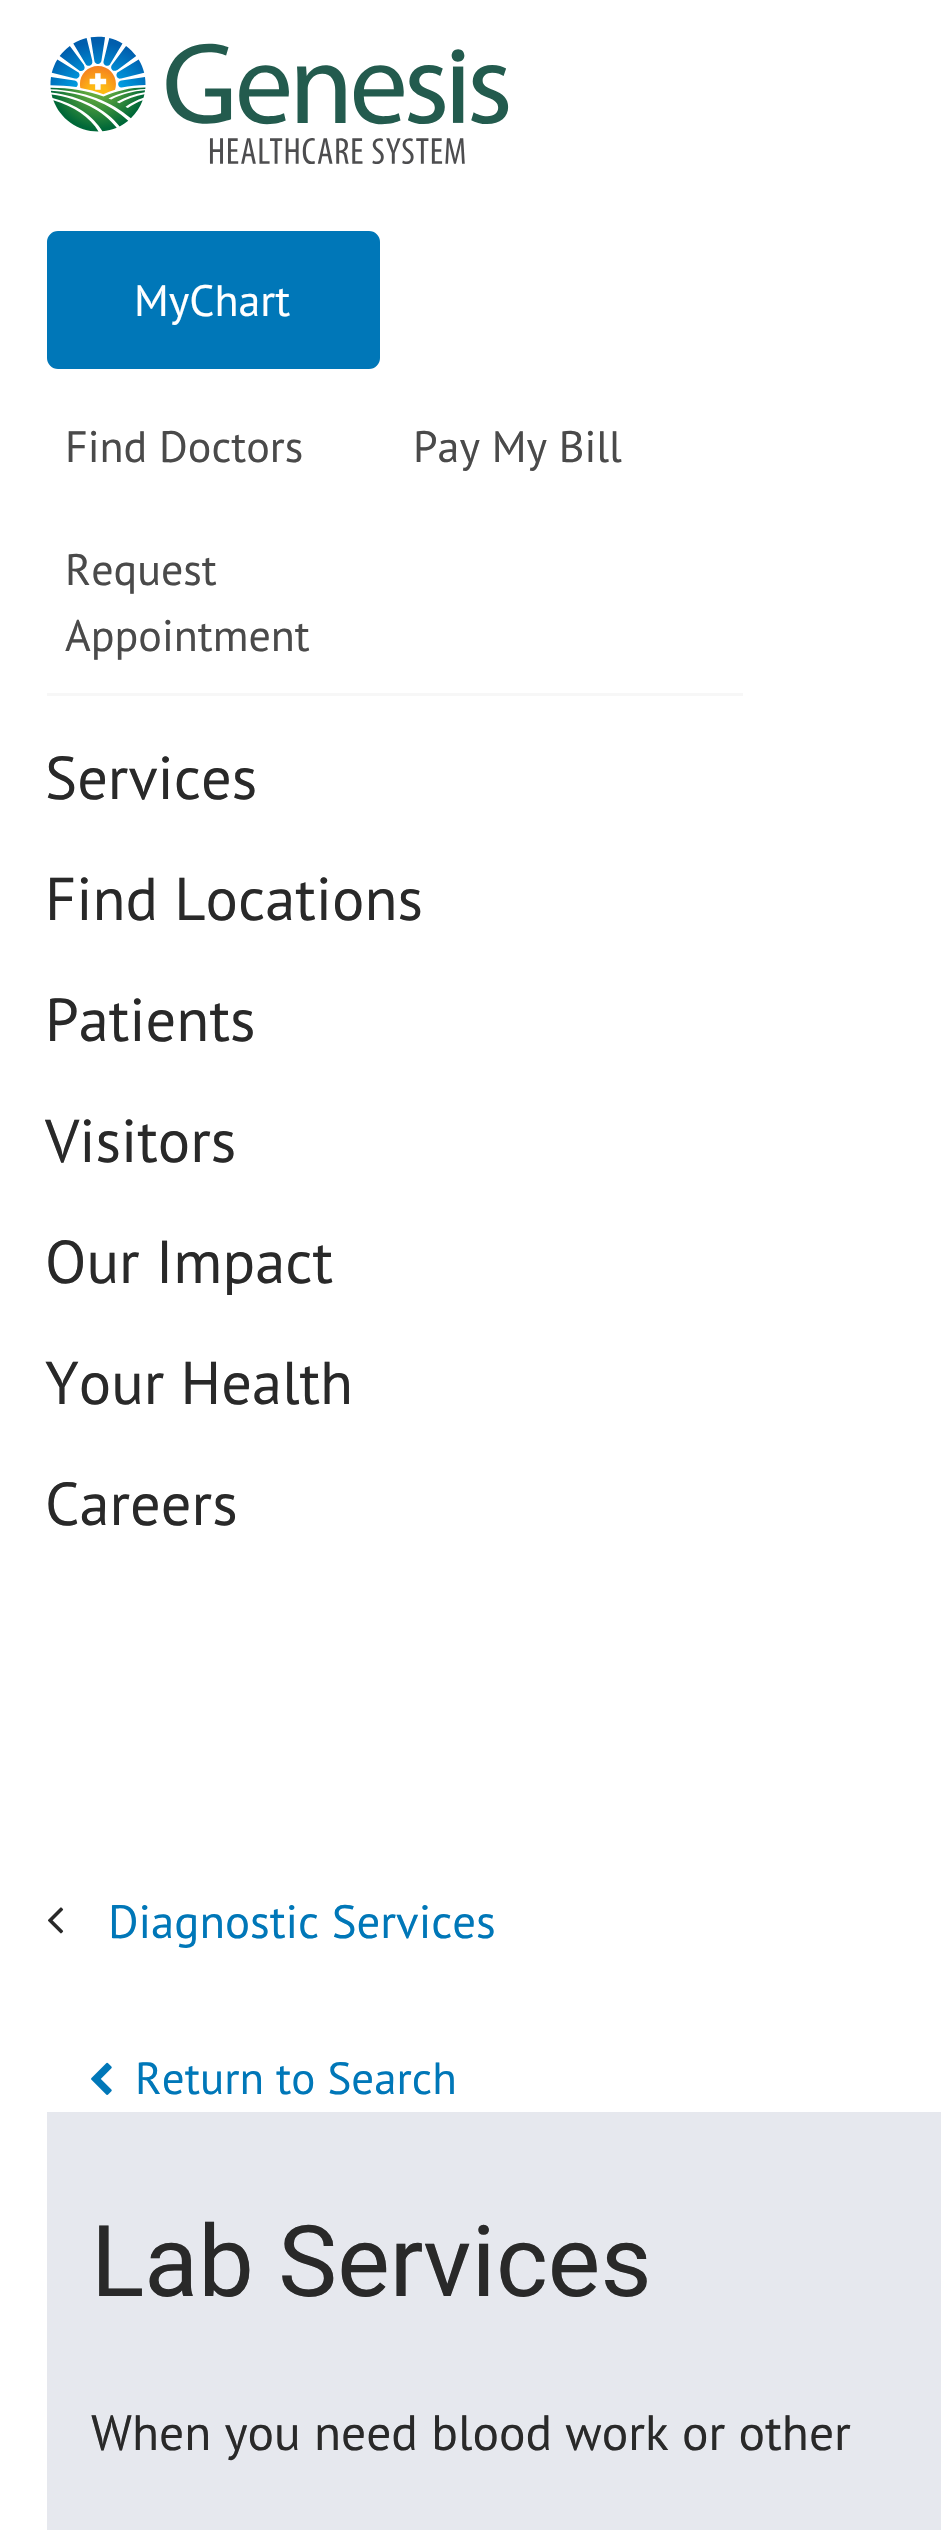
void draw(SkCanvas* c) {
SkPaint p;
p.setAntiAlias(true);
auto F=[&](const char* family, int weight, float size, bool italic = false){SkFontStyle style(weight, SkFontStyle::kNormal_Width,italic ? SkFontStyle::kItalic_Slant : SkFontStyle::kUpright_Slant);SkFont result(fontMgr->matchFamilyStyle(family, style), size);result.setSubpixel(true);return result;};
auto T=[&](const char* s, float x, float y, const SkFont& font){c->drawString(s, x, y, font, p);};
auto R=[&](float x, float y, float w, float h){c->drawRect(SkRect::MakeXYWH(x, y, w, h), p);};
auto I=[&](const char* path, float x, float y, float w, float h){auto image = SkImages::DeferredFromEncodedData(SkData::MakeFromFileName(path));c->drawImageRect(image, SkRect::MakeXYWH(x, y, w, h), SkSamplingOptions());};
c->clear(0xffffffff);
I("1.png",50,36,459,128);
p.setColor(0xff0077b8);
c->drawRoundRect(SkRect::MakeXYWH(50,234,327,132),8,8,p);
p.setStroke(true);
p.setStrokeWidth(6);
c->drawRoundRect(SkRect::MakeXYWH(50,234,327,132),8,8,p);
auto f1 = F("PT Sans",400,44);
p.setStroke(false);
p.setColor(0xffffffff);
T("MyChart",134,316,f1);
p.setColor(0xff4a4a4a);
T("Find Doctors",65,462,f1);
T("Pay My Bill",413,462,f1);
T("Request",65,585,f1);
T("Appointment",65,651,f1);
p.setColor(0xfff7f7f7);
R(47,693,696,3);
auto f2 = F("PT Sans",400,60.5);
p.setColor(0xff292929);
T("Services",45,799,f2);
T("Find Locations",45,920,f2);
T("Patients",45,1041,f2);
T("Visitors",45,1162,f2);
T("Our Impact",45,1283,f2);
T("Your Health",45,1404,f2);
T("Careers",45,1525,f2);
I("2.png",48,1907,16,27);
auto f3 = F("PT Sans",400,46.75);
p.setColor(0xff0077b8);
T("Diagnostic Services",108,1938,f3);
I("3.png",91,2062,21,33);
auto f4 = F("PT Sans",400,45);
T("Return to Search",135,2094,f4);
p.setColor(0xffe6e8ee);
R(47,2112,894,418);
auto f5 = F("Heebo",400,99);
p.setColor(0xff292929);
T("Lab Services",91,2296,f5);
auto f6 = F("PT Sans",400,49.5);
T("When you need blood work or other",91,2450,f6);
}
